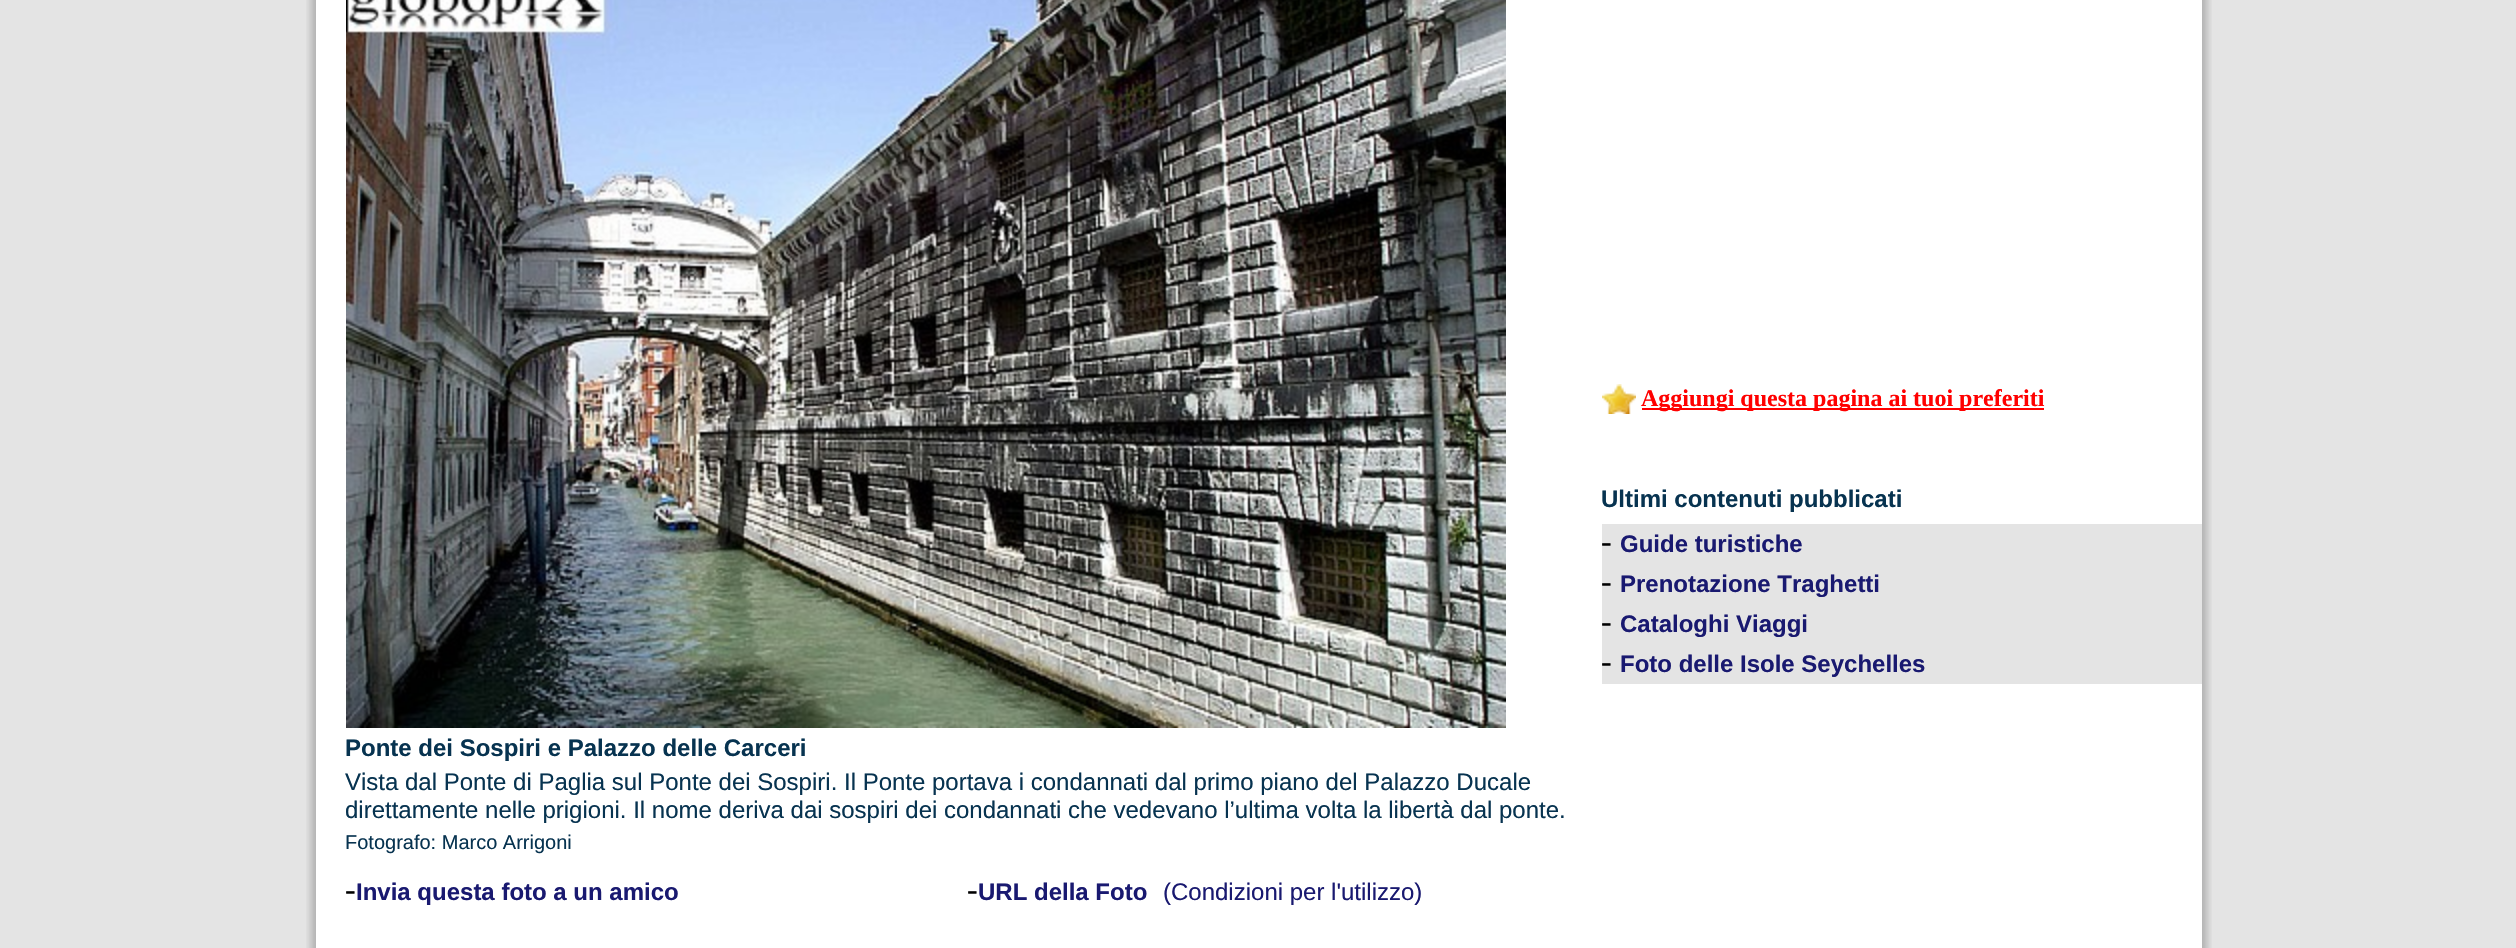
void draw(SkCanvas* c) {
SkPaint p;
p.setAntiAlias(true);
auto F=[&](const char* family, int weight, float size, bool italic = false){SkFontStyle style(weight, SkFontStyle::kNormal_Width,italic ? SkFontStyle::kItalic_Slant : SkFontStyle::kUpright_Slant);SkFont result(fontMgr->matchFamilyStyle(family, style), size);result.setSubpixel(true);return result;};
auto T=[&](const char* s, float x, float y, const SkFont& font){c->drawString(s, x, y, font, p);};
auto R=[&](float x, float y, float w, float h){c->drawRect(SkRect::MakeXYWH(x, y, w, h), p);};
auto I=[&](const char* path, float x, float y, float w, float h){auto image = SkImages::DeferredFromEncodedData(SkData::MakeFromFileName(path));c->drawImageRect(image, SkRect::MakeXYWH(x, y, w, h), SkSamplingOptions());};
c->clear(0xffe4e4e4);
I("1.png",306,0,10,948);
p.setColor(0xffffffff);
R(316,0,1886,948);
I("2.png",1602,384,34,30);
p.setColor(0xffff0000);
R(1642,408,402,2);
auto f1 = F("Liberation Serif",700,24);
T("Aggiungi questa pagina ai tuoi preferiti",1641,406,f1);
auto f2 = F("Liberation Sans",700,24);
p.setColor(0xff073350);
T("Ultimi contenuti pubblicati",1601,507,f2);
p.setColor(0xffe4e4e4);
R(1602,524,600,160);
auto f3 = F("Liberation Serif",400,32);
p.setColor(0xff000000);
T("-",1601,552,f3);
p.setColor(0xff191970);
T("Guide turistiche",1620,552,f2);
p.setColor(0xff000000);
T("-",1601,592,f3);
p.setColor(0xff191970);
T("Prenotazione Traghetti",1620,592,f2);
p.setColor(0xff000000);
T("-",1601,632,f3);
p.setColor(0xff191970);
T("Cataloghi Viaggi",1620,632,f2);
p.setColor(0xff000000);
T("-",1601,672,f3);
p.setColor(0xff191970);
T("Foto delle Isole Seychelles",1620,672,f2);
I("3.png",346,0,1160,728);
p.setColor(0xff073350);
T("Ponte dei Sospiri e Palazzo delle Carceri",345,756,f2);
auto f4 = F("Liberation Sans",400,24);
T("Vista dal Ponte di Paglia sul Ponte dei Sospiri. Il Ponte portava i condannati dal primo piano del Palazzo Ducale",345,790,f4);
T("direttamente nelle prigioni. Il nome deriva dai sospiri dei condannati che vedevano l’ultima volta la libertà dal ponte.",345,818,f4);
auto f5 = F("Liberation Sans",400,20);
T("Fotografo: Marco Arrigoni",345,849,f5);
p.setColor(0xff000000);
T("-",345,900,f3);
p.setColor(0xff191970);
T("Invia questa foto a un amico",356,900,f2);
p.setColor(0xff000000);
T("-",967,900,f3);
p.setColor(0xff191970);
T("URL della Foto",978,900,f2);
T("(Condizioni per l'utilizzo)",1163,900,f4);
I("4.png",2202,0,10,948);
}
